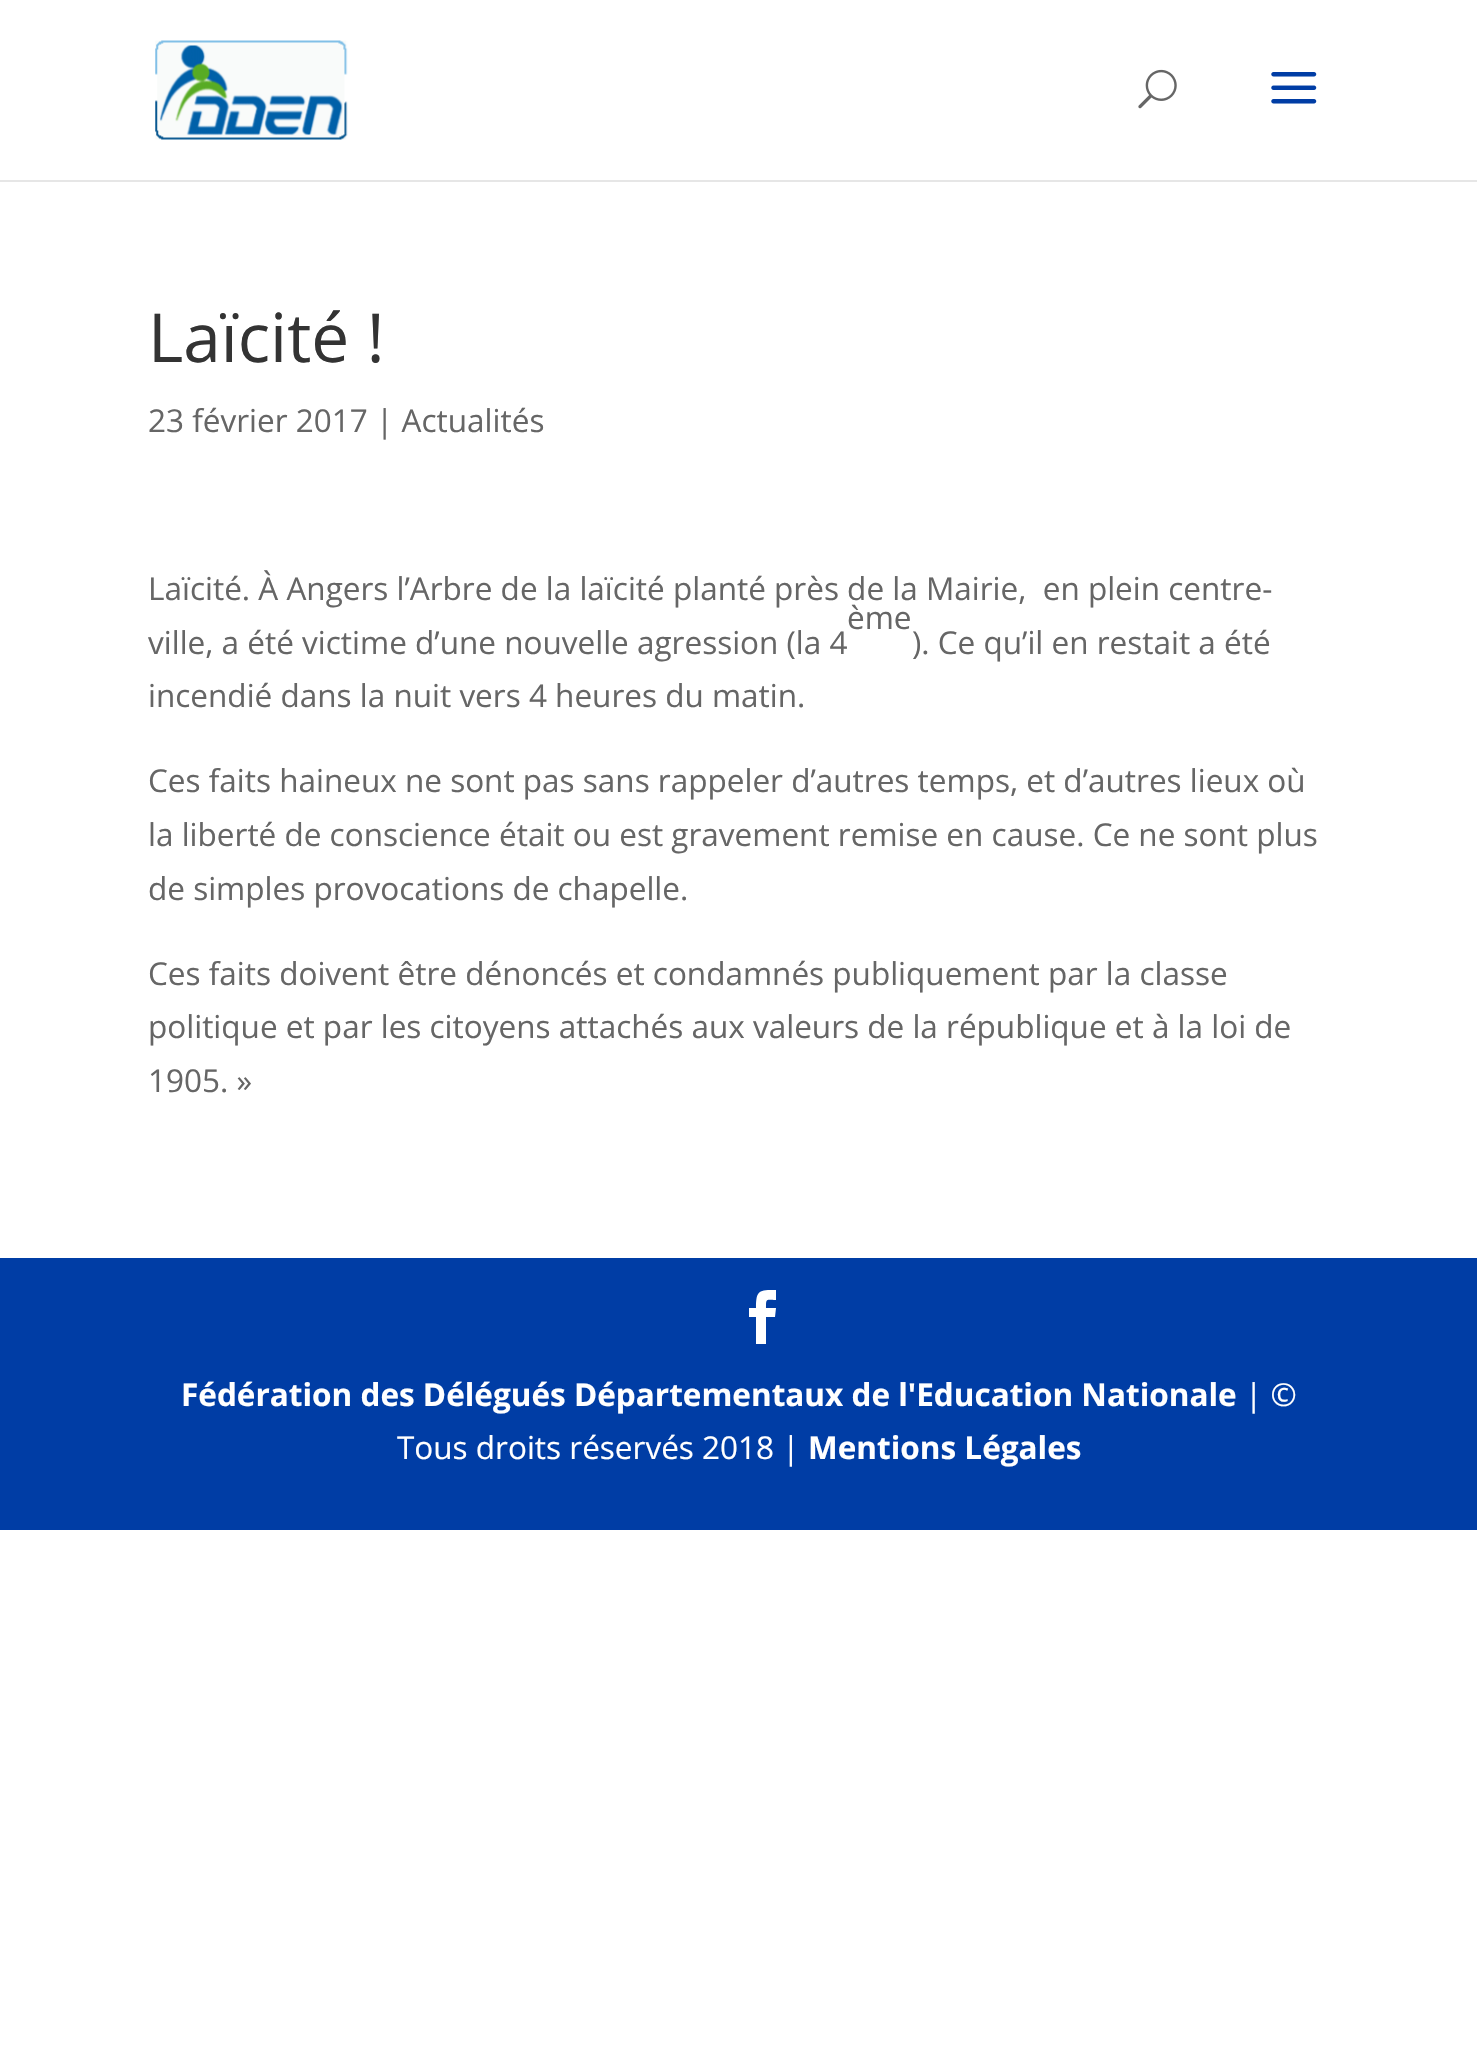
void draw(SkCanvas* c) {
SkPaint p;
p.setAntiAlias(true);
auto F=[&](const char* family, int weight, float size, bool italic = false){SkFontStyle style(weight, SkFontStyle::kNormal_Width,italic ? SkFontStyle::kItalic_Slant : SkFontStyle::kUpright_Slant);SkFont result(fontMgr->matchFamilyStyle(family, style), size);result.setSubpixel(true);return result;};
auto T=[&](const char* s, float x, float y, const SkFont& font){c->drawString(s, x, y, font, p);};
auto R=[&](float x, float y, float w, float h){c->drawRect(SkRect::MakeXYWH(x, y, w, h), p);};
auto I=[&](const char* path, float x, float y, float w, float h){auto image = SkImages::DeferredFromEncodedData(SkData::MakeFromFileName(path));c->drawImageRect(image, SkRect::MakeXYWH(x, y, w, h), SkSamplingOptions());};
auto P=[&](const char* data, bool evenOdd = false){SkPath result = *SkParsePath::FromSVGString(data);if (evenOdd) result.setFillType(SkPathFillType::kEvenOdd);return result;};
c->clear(0xffffffff);
p.setColor(0xffe6e6e6);
R(0,180,1477,2);
I("1.png",155,40,193,100);
I("2.png",1138,69,39,40);
I("3.png",1271,72,46,32);
auto f1 = F("Open Sans",400,67.5);
p.setColor(0xff333333);
T("Laïcité !",148,362,f1);
auto f2 = F("Open Sans",400,31.5);
p.setColor(0xff666666);
T("23 février 2017 | Actualités",148,432,f2);
T("Laïcité. À Angers l’Arbre de la laïcité planté près de la Mairie,  en plein centre-",148,600,f2);
T("ème",847,629,f2);
T("ville, a été victime d’une nouvelle agression (la 4",148,654,f2);
T("). Ce qu’il en restait a été",912,654,f2);
T("incendié dans la nuit vers 4 heures du matin.",148,707,f2);
T("Ces faits haineux ne sont pas sans rappeler d’autres temps, et d’autres lieux où",148,792,f2);
T("la liberté de conscience était ou est gravement remise en cause. Ce ne sont plus",148,846,f2);
T("de simples provocations de chapelle.",148,900,f2);
T("Ces faits doivent être dénoncés et condamnés publiquement par la classe",148,985,f2);
T("politique et par les citoyens attachés aux valeurs de la république et à la loi de",148,1038,f2);
T("1905. »",148,1092,f2);
p.setColor(0xff003da5);
R(0,1258,1477,272);
p.setColor(0xffffffff);
c->drawPath(P("M756 1344h10v-27h9l1-9h-10c0-10 0-8 10-8v-10c-17 0-20 0-20 18h-7v9h7z"),p);
auto f3 = F("Open Sans",700,31.5);
T("Fédération des Délégués Départementaux de l'Education Nationale",181,1406,f3);
T("| ©",1245,1406,f2);
T("Tous droits réservés 2018 |",397,1459,f2);
T("Mentions Légales",808,1459,f3);
}
